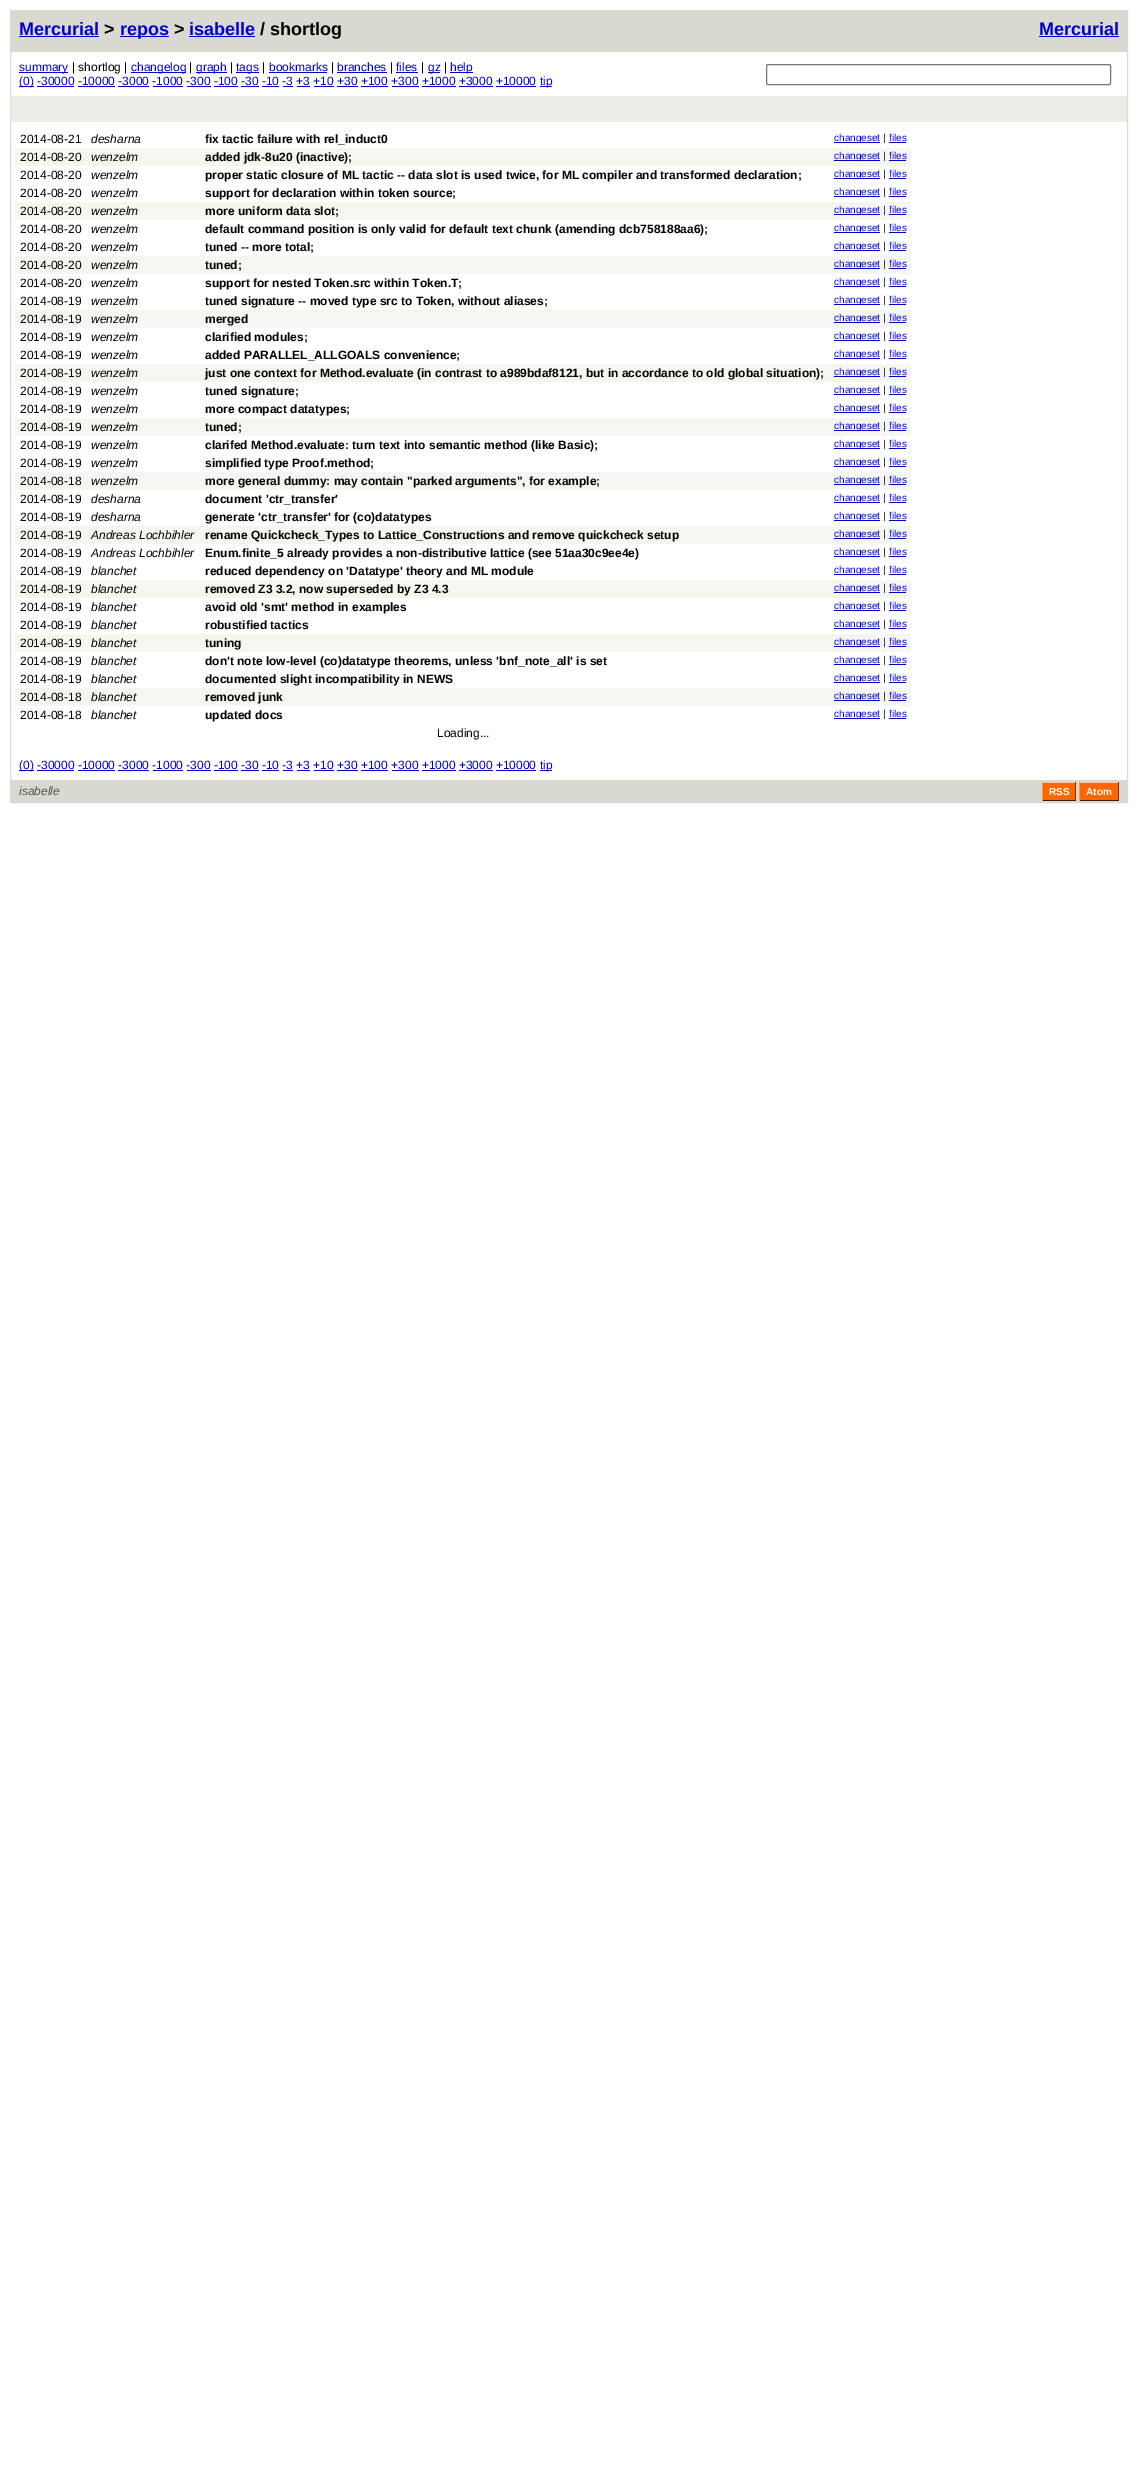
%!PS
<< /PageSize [1138 2486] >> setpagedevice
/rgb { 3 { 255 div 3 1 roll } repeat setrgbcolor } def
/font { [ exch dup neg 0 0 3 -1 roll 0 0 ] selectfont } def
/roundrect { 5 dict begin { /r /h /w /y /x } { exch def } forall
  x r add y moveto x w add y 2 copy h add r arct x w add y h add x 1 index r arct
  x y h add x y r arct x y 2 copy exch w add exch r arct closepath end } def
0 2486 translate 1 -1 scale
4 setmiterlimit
255 255 255 rgb
0 0 1138 2486 rectfill
217 216 209 rgb
10.5 10.5 1117 792 rectstroke
[
  [11 11 1116 41 217 216 209]
  [19 36 80 1 0 0 204]
  [120 36 49 1 0 0 204]
  [189 36 66 1 0 0 204]
  [1039 36 80 1 0 0 204]
  [19 72 49 1 0 0 204]
  [131 72 55 1 0 0 204]
  [196 72 31 1 0 0 204]
  [236 72 23 1 0 0 204]
  [269 72 58 1 0 0 204]
  [337 72 50 1 0 0 204]
  [396 72 22 1 0 0 204]
  [428 72 12 1 0 0 204]
  [450 72 23 1 0 0 204]
  [19 86 15 1 0 0 204]
  [540 86 12 1 0 0 204]
  [37 86 37 1 0 0 204]
  [78 86 37 1 0 0 204]
  [118 86 31 1 0 0 204]
  [153 86 30 1 0 0 204]
  [187 86 24 1 0 0 204]
  [214 86 24 1 0 0 204]
  [241 86 18 1 0 0 204]
  [262 86 17 1 0 0 204]
  [283 86 10 1 0 0 204]
  [297 86 13 1 0 0 204]
  [314 86 20 1 0 0 204]
  [337 86 21 1 0 0 204]
  [361 86 27 1 0 0 204]
  [392 86 27 1 0 0 204]
  [422 86 34 1 0 0 204]
  [459 86 34 1 0 0 204]
  [496 86 40 1 0 0 204]
] { aload pop rgb rectfill } forall
118 118 118 rgb
766.5 64.5 344 20 1.5 roundrect stroke
[
  [11 96 1116 26 237 236 230]
  [834 142 46 1 0 0 204]
  [889 142 17 1 0 0 204]
  [15 148 896 18 246 246 240]
  [834 160 46 1 0 0 204]
  [889 160 17 1 0 0 204]
  [834 178 46 1 0 0 204]
  [889 178 17 1 0 0 204]
  [834 196 46 1 0 0 204]
  [889 196 17 1 0 0 204]
  [15 202 896 18 246 246 240]
  [834 214 46 1 0 0 204]
  [889 214 17 1 0 0 204]
  [834 232 46 1 0 0 204]
  [889 232 17 1 0 0 204]
  [834 250 46 1 0 0 204]
  [889 250 17 1 0 0 204]
  [15 256 896 18 246 246 240]
  [834 268 46 1 0 0 204]
  [889 268 17 1 0 0 204]
  [834 286 46 1 0 0 204]
  [889 286 17 1 0 0 204]
  [834 304 46 1 0 0 204]
  [889 304 17 1 0 0 204]
  [15 310 896 18 246 246 240]
  [834 322 46 1 0 0 204]
  [889 322 17 1 0 0 204]
  [834 340 46 1 0 0 204]
  [889 340 17 1 0 0 204]
  [834 358 46 1 0 0 204]
  [889 358 17 1 0 0 204]
  [15 364 896 18 246 246 240]
  [834 376 46 1 0 0 204]
  [889 376 17 1 0 0 204]
  [834 394 46 1 0 0 204]
  [889 394 17 1 0 0 204]
  [834 412 46 1 0 0 204]
  [889 412 17 1 0 0 204]
  [15 418 896 18 246 246 240]
  [834 430 46 1 0 0 204]
  [889 430 17 1 0 0 204]
  [834 448 46 1 0 0 204]
  [889 448 17 1 0 0 204]
  [834 466 46 1 0 0 204]
  [889 466 17 1 0 0 204]
  [15 472 896 18 246 246 240]
  [834 484 46 1 0 0 204]
  [889 484 17 1 0 0 204]
  [834 502 46 1 0 0 204]
  [889 502 17 1 0 0 204]
  [834 520 46 1 0 0 204]
  [889 520 17 1 0 0 204]
  [15 526 896 18 246 246 240]
  [834 538 46 1 0 0 204]
  [889 538 17 1 0 0 204]
  [834 556 46 1 0 0 204]
  [889 556 17 1 0 0 204]
  [834 574 46 1 0 0 204]
  [889 574 17 1 0 0 204]
  [15 580 896 18 246 246 240]
  [834 592 46 1 0 0 204]
  [889 592 17 1 0 0 204]
  [834 610 46 1 0 0 204]
  [889 610 17 1 0 0 204]
  [834 628 46 1 0 0 204]
  [889 628 17 1 0 0 204]
  [15 634 896 18 246 246 240]
  [834 646 46 1 0 0 204]
  [889 646 17 1 0 0 204]
  [834 664 46 1 0 0 204]
  [889 664 17 1 0 0 204]
  [834 682 46 1 0 0 204]
  [889 682 17 1 0 0 204]
  [15 688 896 18 246 246 240]
  [834 700 46 1 0 0 204]
  [889 700 17 1 0 0 204]
  [834 718 46 1 0 0 204]
  [889 718 17 1 0 0 204]
  [19 770 15 1 0 0 204]
  [540 770 12 1 0 0 204]
  [37 770 37 1 0 0 204]
  [78 770 37 1 0 0 204]
  [118 770 31 1 0 0 204]
  [153 770 30 1 0 0 204]
  [187 770 24 1 0 0 204]
  [214 770 24 1 0 0 204]
  [241 770 18 1 0 0 204]
  [262 770 17 1 0 0 204]
  [283 770 10 1 0 0 204]
  [297 770 13 1 0 0 204]
  [314 770 20 1 0 0 204]
  [337 770 21 1 0 0 204]
  [361 770 27 1 0 0 204]
  [392 770 27 1 0 0 204]
  [422 770 34 1 0 0 204]
  [459 770 34 1 0 0 204]
  [496 770 40 1 0 0 204]
  [11 780 1116 22 217 216 209]
  [1043 783 32 17 255 102 0]
  [1042 782 34 1 252 199 165]
  [1075 782 1 19 125 51 2]
  [1042 800 34 1 62 26 1]
  [1042 782 1 19 255 149 78]
  [1080 783 38 17 255 102 0]
  [1079 782 40 1 252 199 165]
  [1118 782 1 19 125 51 2]
  [1079 800 40 1 62 26 1]
  [1079 782 1 19 255 149 78]
] { aload pop rgb rectfill } forall
/LiberationSans-Bold 18 font
0 0 204 rgb
19 35 moveto (Mercurial) show
0 0 0 rgb
104 35 moveto (>) show
0 0 204 rgb
120 35 moveto (repos) show
0 0 0 rgb
174 35 moveto (>) show
0 0 204 rgb
189 35 moveto (isabelle) show
0 0 0 rgb
260 35 moveto (/ shortlog) show
0 0 204 rgb
1039 35 moveto (Mercurial) show
/LiberationSans-Regular 12 font
19 71 moveto (summary) show
0 0 0 rgb
72 71 moveto (| shortlog |) show
0 0 204 rgb
131 71 moveto (changelog) show
0 0 0 rgb
189 71 moveto (|) show
0 0 204 rgb
196 71 moveto (graph) show
0 0 0 rgb
230 71 moveto (|) show
0 0 204 rgb
236 71 moveto (tags) show
0 0 0 rgb
262 71 moveto (|) show
0 0 204 rgb
269 71 moveto (bookmarks) show
0 0 0 rgb
331 71 moveto (|) show
0 0 204 rgb
337 71 moveto (branches) show
0 0 0 rgb
390 71 moveto (|) show
0 0 204 rgb
396 71 moveto (files) show
0 0 0 rgb
421 71 moveto (|) show
0 0 204 rgb
428 71 moveto (gz) show
0 0 0 rgb
444 71 moveto (|) show
0 0 204 rgb
[
  [(help) 450 71]
  [(\(0\) -30000 -10000 -3000 -1000 -300 -100 -30 -10 -3 +3 +10 +30 +100 +300 +1000 +3000 +10000) 19 85]
  [(tip) 540 85]
] { aload pop moveto show } forall
0 0 0 rgb
20 143 moveto (2014-08-21) show
/LiberationSans-Italic 12 font
91 143 moveto (desharna) show
/LiberationSans-Bold 12 font
205 143 moveto (fix tactic failure with rel_induct0) show
/LiberationSans-Regular 10 font
0 0 204 rgb
834 141 moveto (changeset) show
0 0 0 rgb
883 141 moveto (|) show
0 0 204 rgb
889 141 moveto (files) show
/LiberationSans-Regular 12 font
0 0 0 rgb
20 161 moveto (2014-08-20) show
/LiberationSans-Italic 12 font
91 161 moveto (wenzelm) show
/LiberationSans-Bold 12 font
205 161 moveto (added jdk-8u20 \(inactive\);) show
/LiberationSans-Regular 10 font
0 0 204 rgb
834 159 moveto (changeset) show
0 0 0 rgb
883 159 moveto (|) show
0 0 204 rgb
889 159 moveto (files) show
/LiberationSans-Regular 12 font
0 0 0 rgb
20 179 moveto (2014-08-20) show
/LiberationSans-Italic 12 font
91 179 moveto (wenzelm) show
/LiberationSans-Bold 12 font
205 179 moveto (proper static closure of ML tactic -- data slot is used twice, for ML compiler and transformed declaration;) show
/LiberationSans-Regular 10 font
0 0 204 rgb
834 177 moveto (changeset) show
0 0 0 rgb
883 177 moveto (|) show
0 0 204 rgb
889 177 moveto (files) show
/LiberationSans-Regular 12 font
0 0 0 rgb
20 197 moveto (2014-08-20) show
/LiberationSans-Italic 12 font
91 197 moveto (wenzelm) show
/LiberationSans-Bold 12 font
205 197 moveto (support for declaration within token source;) show
/LiberationSans-Regular 10 font
0 0 204 rgb
834 195 moveto (changeset) show
0 0 0 rgb
883 195 moveto (|) show
0 0 204 rgb
889 195 moveto (files) show
/LiberationSans-Regular 12 font
0 0 0 rgb
20 215 moveto (2014-08-20) show
/LiberationSans-Italic 12 font
91 215 moveto (wenzelm) show
/LiberationSans-Bold 12 font
205 215 moveto (more uniform data slot;) show
/LiberationSans-Regular 10 font
0 0 204 rgb
834 213 moveto (changeset) show
0 0 0 rgb
883 213 moveto (|) show
0 0 204 rgb
889 213 moveto (files) show
/LiberationSans-Regular 12 font
0 0 0 rgb
20 233 moveto (2014-08-20) show
/LiberationSans-Italic 12 font
91 233 moveto (wenzelm) show
/LiberationSans-Bold 12 font
205 233 moveto (default command position is only valid for default text chunk \(amending dcb758188aa6\);) show
/LiberationSans-Regular 10 font
0 0 204 rgb
834 231 moveto (changeset) show
0 0 0 rgb
883 231 moveto (|) show
0 0 204 rgb
889 231 moveto (files) show
/LiberationSans-Regular 12 font
0 0 0 rgb
20 251 moveto (2014-08-20) show
/LiberationSans-Italic 12 font
91 251 moveto (wenzelm) show
/LiberationSans-Bold 12 font
205 251 moveto (tuned -- more total;) show
/LiberationSans-Regular 10 font
0 0 204 rgb
834 249 moveto (changeset) show
0 0 0 rgb
883 249 moveto (|) show
0 0 204 rgb
889 249 moveto (files) show
/LiberationSans-Regular 12 font
0 0 0 rgb
20 269 moveto (2014-08-20) show
/LiberationSans-Italic 12 font
91 269 moveto (wenzelm) show
/LiberationSans-Bold 12 font
205 269 moveto (tuned;) show
/LiberationSans-Regular 10 font
0 0 204 rgb
834 267 moveto (changeset) show
0 0 0 rgb
883 267 moveto (|) show
0 0 204 rgb
889 267 moveto (files) show
/LiberationSans-Regular 12 font
0 0 0 rgb
20 287 moveto (2014-08-20) show
/LiberationSans-Italic 12 font
91 287 moveto (wenzelm) show
/LiberationSans-Bold 12 font
205 287 moveto (support for nested Token.src within Token.T;) show
/LiberationSans-Regular 10 font
0 0 204 rgb
834 285 moveto (changeset) show
0 0 0 rgb
883 285 moveto (|) show
0 0 204 rgb
889 285 moveto (files) show
/LiberationSans-Regular 12 font
0 0 0 rgb
20 305 moveto (2014-08-19) show
/LiberationSans-Italic 12 font
91 305 moveto (wenzelm) show
/LiberationSans-Bold 12 font
205 305 moveto (tuned signature -- moved type src to Token, without aliases;) show
/LiberationSans-Regular 10 font
0 0 204 rgb
834 303 moveto (changeset) show
0 0 0 rgb
883 303 moveto (|) show
0 0 204 rgb
889 303 moveto (files) show
/LiberationSans-Regular 12 font
0 0 0 rgb
20 323 moveto (2014-08-19) show
/LiberationSans-Italic 12 font
91 323 moveto (wenzelm) show
/LiberationSans-Bold 12 font
205 323 moveto (merged) show
/LiberationSans-Regular 10 font
0 0 204 rgb
834 321 moveto (changeset) show
0 0 0 rgb
883 321 moveto (|) show
0 0 204 rgb
889 321 moveto (files) show
/LiberationSans-Regular 12 font
0 0 0 rgb
20 341 moveto (2014-08-19) show
/LiberationSans-Italic 12 font
91 341 moveto (wenzelm) show
/LiberationSans-Bold 12 font
205 341 moveto (clarified modules;) show
/LiberationSans-Regular 10 font
0 0 204 rgb
834 339 moveto (changeset) show
0 0 0 rgb
883 339 moveto (|) show
0 0 204 rgb
889 339 moveto (files) show
/LiberationSans-Regular 12 font
0 0 0 rgb
20 359 moveto (2014-08-19) show
/LiberationSans-Italic 12 font
91 359 moveto (wenzelm) show
/LiberationSans-Bold 12 font
205 359 moveto (added PARALLEL_ALLGOALS convenience;) show
/LiberationSans-Regular 10 font
0 0 204 rgb
834 357 moveto (changeset) show
0 0 0 rgb
883 357 moveto (|) show
0 0 204 rgb
889 357 moveto (files) show
/LiberationSans-Regular 12 font
0 0 0 rgb
20 377 moveto (2014-08-19) show
/LiberationSans-Italic 12 font
91 377 moveto (wenzelm) show
/LiberationSans-Bold 12 font
205 377 moveto (just one context for Method.evaluate \(in contrast to a989bdaf8121, but in accordance to old global situation\);) show
/LiberationSans-Regular 10 font
0 0 204 rgb
834 375 moveto (changeset) show
0 0 0 rgb
883 375 moveto (|) show
0 0 204 rgb
889 375 moveto (files) show
/LiberationSans-Regular 12 font
0 0 0 rgb
20 395 moveto (2014-08-19) show
/LiberationSans-Italic 12 font
91 395 moveto (wenzelm) show
/LiberationSans-Bold 12 font
205 395 moveto (tuned signature;) show
/LiberationSans-Regular 10 font
0 0 204 rgb
834 393 moveto (changeset) show
0 0 0 rgb
883 393 moveto (|) show
0 0 204 rgb
889 393 moveto (files) show
/LiberationSans-Regular 12 font
0 0 0 rgb
20 413 moveto (2014-08-19) show
/LiberationSans-Italic 12 font
91 413 moveto (wenzelm) show
/LiberationSans-Bold 12 font
205 413 moveto (more compact datatypes;) show
/LiberationSans-Regular 10 font
0 0 204 rgb
834 411 moveto (changeset) show
0 0 0 rgb
883 411 moveto (|) show
0 0 204 rgb
889 411 moveto (files) show
/LiberationSans-Regular 12 font
0 0 0 rgb
20 431 moveto (2014-08-19) show
/LiberationSans-Italic 12 font
91 431 moveto (wenzelm) show
/LiberationSans-Bold 12 font
205 431 moveto (tuned;) show
/LiberationSans-Regular 10 font
0 0 204 rgb
834 429 moveto (changeset) show
0 0 0 rgb
883 429 moveto (|) show
0 0 204 rgb
889 429 moveto (files) show
/LiberationSans-Regular 12 font
0 0 0 rgb
20 449 moveto (2014-08-19) show
/LiberationSans-Italic 12 font
91 449 moveto (wenzelm) show
/LiberationSans-Bold 12 font
205 449 moveto (clarifed Method.evaluate: turn text into semantic method \(like Basic\);) show
/LiberationSans-Regular 10 font
0 0 204 rgb
834 447 moveto (changeset) show
0 0 0 rgb
883 447 moveto (|) show
0 0 204 rgb
889 447 moveto (files) show
/LiberationSans-Regular 12 font
0 0 0 rgb
20 467 moveto (2014-08-19) show
/LiberationSans-Italic 12 font
91 467 moveto (wenzelm) show
/LiberationSans-Bold 12 font
205 467 moveto (simplified type Proof.method;) show
/LiberationSans-Regular 10 font
0 0 204 rgb
834 465 moveto (changeset) show
0 0 0 rgb
883 465 moveto (|) show
0 0 204 rgb
889 465 moveto (files) show
/LiberationSans-Regular 12 font
0 0 0 rgb
20 485 moveto (2014-08-18) show
/LiberationSans-Italic 12 font
91 485 moveto (wenzelm) show
/LiberationSans-Bold 12 font
205 485 moveto (more general dummy: may contain "parked arguments", for example;) show
/LiberationSans-Regular 10 font
0 0 204 rgb
834 483 moveto (changeset) show
0 0 0 rgb
883 483 moveto (|) show
0 0 204 rgb
889 483 moveto (files) show
/LiberationSans-Regular 12 font
0 0 0 rgb
20 503 moveto (2014-08-19) show
/LiberationSans-Italic 12 font
91 503 moveto (desharna) show
/LiberationSans-Bold 12 font
205 503 moveto (document 'ctr_transfer') show
/LiberationSans-Regular 10 font
0 0 204 rgb
834 501 moveto (changeset) show
0 0 0 rgb
883 501 moveto (|) show
0 0 204 rgb
889 501 moveto (files) show
/LiberationSans-Regular 12 font
0 0 0 rgb
20 521 moveto (2014-08-19) show
/LiberationSans-Italic 12 font
91 521 moveto (desharna) show
/LiberationSans-Bold 12 font
205 521 moveto (generate 'ctr_transfer' for \(co\)datatypes) show
/LiberationSans-Regular 10 font
0 0 204 rgb
834 519 moveto (changeset) show
0 0 0 rgb
883 519 moveto (|) show
0 0 204 rgb
889 519 moveto (files) show
/LiberationSans-Regular 12 font
0 0 0 rgb
20 539 moveto (2014-08-19) show
/LiberationSans-Italic 12 font
91 539 moveto (Andreas Lochbihler) show
/LiberationSans-Bold 12 font
205 539 moveto (rename Quickcheck_Types to Lattice_Constructions and remove quickcheck setup) show
/LiberationSans-Regular 10 font
0 0 204 rgb
834 537 moveto (changeset) show
0 0 0 rgb
883 537 moveto (|) show
0 0 204 rgb
889 537 moveto (files) show
/LiberationSans-Regular 12 font
0 0 0 rgb
20 557 moveto (2014-08-19) show
/LiberationSans-Italic 12 font
91 557 moveto (Andreas Lochbihler) show
/LiberationSans-Bold 12 font
205 557 moveto (Enum.finite_5 already provides a non-distributive lattice \(see 51aa30c9ee4e\)) show
/LiberationSans-Regular 10 font
0 0 204 rgb
834 555 moveto (changeset) show
0 0 0 rgb
883 555 moveto (|) show
0 0 204 rgb
889 555 moveto (files) show
/LiberationSans-Regular 12 font
0 0 0 rgb
20 575 moveto (2014-08-19) show
/LiberationSans-Italic 12 font
91 575 moveto (blanchet) show
/LiberationSans-Bold 12 font
205 575 moveto (reduced dependency on 'Datatype' theory and ML module) show
/LiberationSans-Regular 10 font
0 0 204 rgb
834 573 moveto (changeset) show
0 0 0 rgb
883 573 moveto (|) show
0 0 204 rgb
889 573 moveto (files) show
/LiberationSans-Regular 12 font
0 0 0 rgb
20 593 moveto (2014-08-19) show
/LiberationSans-Italic 12 font
91 593 moveto (blanchet) show
/LiberationSans-Bold 12 font
205 593 moveto (removed Z3 3.2, now superseded by Z3 4.3) show
/LiberationSans-Regular 10 font
0 0 204 rgb
834 591 moveto (changeset) show
0 0 0 rgb
883 591 moveto (|) show
0 0 204 rgb
889 591 moveto (files) show
/LiberationSans-Regular 12 font
0 0 0 rgb
20 611 moveto (2014-08-19) show
/LiberationSans-Italic 12 font
91 611 moveto (blanchet) show
/LiberationSans-Bold 12 font
205 611 moveto (avoid old 'smt' method in examples) show
/LiberationSans-Regular 10 font
0 0 204 rgb
834 609 moveto (changeset) show
0 0 0 rgb
883 609 moveto (|) show
0 0 204 rgb
889 609 moveto (files) show
/LiberationSans-Regular 12 font
0 0 0 rgb
20 629 moveto (2014-08-19) show
/LiberationSans-Italic 12 font
91 629 moveto (blanchet) show
/LiberationSans-Bold 12 font
205 629 moveto (robustified tactics) show
/LiberationSans-Regular 10 font
0 0 204 rgb
834 627 moveto (changeset) show
0 0 0 rgb
883 627 moveto (|) show
0 0 204 rgb
889 627 moveto (files) show
/LiberationSans-Regular 12 font
0 0 0 rgb
20 647 moveto (2014-08-19) show
/LiberationSans-Italic 12 font
91 647 moveto (blanchet) show
/LiberationSans-Bold 12 font
205 647 moveto (tuning) show
/LiberationSans-Regular 10 font
0 0 204 rgb
834 645 moveto (changeset) show
0 0 0 rgb
883 645 moveto (|) show
0 0 204 rgb
889 645 moveto (files) show
/LiberationSans-Regular 12 font
0 0 0 rgb
20 665 moveto (2014-08-19) show
/LiberationSans-Italic 12 font
91 665 moveto (blanchet) show
/LiberationSans-Bold 12 font
205 665 moveto (don't note low-level \(co\)datatype theorems, unless 'bnf_note_all' is set) show
/LiberationSans-Regular 10 font
0 0 204 rgb
834 663 moveto (changeset) show
0 0 0 rgb
883 663 moveto (|) show
0 0 204 rgb
889 663 moveto (files) show
/LiberationSans-Regular 12 font
0 0 0 rgb
20 683 moveto (2014-08-19) show
/LiberationSans-Italic 12 font
91 683 moveto (blanchet) show
/LiberationSans-Bold 12 font
205 683 moveto (documented slight incompatibility in NEWS) show
/LiberationSans-Regular 10 font
0 0 204 rgb
834 681 moveto (changeset) show
0 0 0 rgb
883 681 moveto (|) show
0 0 204 rgb
889 681 moveto (files) show
/LiberationSans-Regular 12 font
0 0 0 rgb
20 701 moveto (2014-08-18) show
/LiberationSans-Italic 12 font
91 701 moveto (blanchet) show
/LiberationSans-Bold 12 font
205 701 moveto (removed junk) show
/LiberationSans-Regular 10 font
0 0 204 rgb
834 699 moveto (changeset) show
0 0 0 rgb
883 699 moveto (|) show
0 0 204 rgb
889 699 moveto (files) show
/LiberationSans-Regular 12 font
0 0 0 rgb
20 719 moveto (2014-08-18) show
/LiberationSans-Italic 12 font
91 719 moveto (blanchet) show
/LiberationSans-Bold 12 font
205 719 moveto (updated docs) show
/LiberationSans-Regular 10 font
0 0 204 rgb
834 717 moveto (changeset) show
0 0 0 rgb
883 717 moveto (|) show
0 0 204 rgb
889 717 moveto (files) show
/LiberationSans-Regular 12 font
0 0 0 rgb
437 737 moveto (Loading...) show
0 0 204 rgb
19 769 moveto (\(0\) -30000 -10000 -3000 -1000 -300 -100 -30 -10 -3 +3 +10 +30 +100 +300 +1000 +3000 +10000) show
540 769 moveto (tip) show
/LiberationSans-Italic 12 font
85 85 85 rgb
19 795 moveto (isabelle) show
/LiberationSans-Bold 10 font
255 255 255 rgb
1049 795 moveto (RSS) show
1086 795 moveto (Atom) show
showpage
